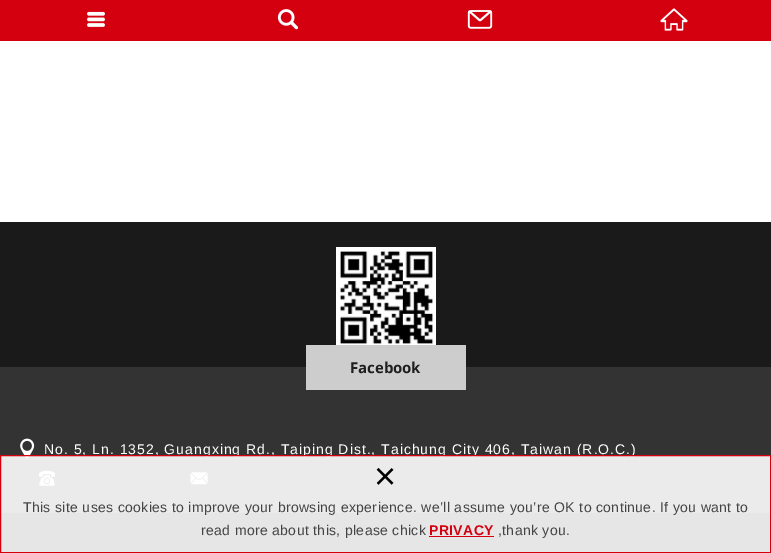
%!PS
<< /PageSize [771 553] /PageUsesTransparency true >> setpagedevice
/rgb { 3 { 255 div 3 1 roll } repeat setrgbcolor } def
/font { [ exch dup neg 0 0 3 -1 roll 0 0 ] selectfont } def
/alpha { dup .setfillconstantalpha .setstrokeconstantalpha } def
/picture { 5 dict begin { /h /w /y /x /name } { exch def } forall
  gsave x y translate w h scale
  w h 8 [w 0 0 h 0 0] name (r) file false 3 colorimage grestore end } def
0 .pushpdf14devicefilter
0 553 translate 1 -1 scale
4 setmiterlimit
255 255 255 rgb
0 0 771 553 rectfill
213 0 15 rgb
0 40 771 1 rectfill
0 0 771 40 rectfill
(img/1.rgb) 87 11 18 16 picture
(img/2.rgb) 277 9 22 21 picture
(img/3.rgb) 467 10 26 19 picture
(img/4.rgb) 660 8 28 23 picture
26 26 26 rgb
0 222 771 145 rectfill
(img/5.rgb) 336 247 100 98 picture
51 51 51 rgb
0 367 771 146 rectfill
(img/6.rgb) 306 345 160 45 picture
(img/7.rgb) 20 438 15 21 picture
(img/8.rgb) 39 470 16 16 picture
(img/9.rgb) 190 472 18 13 picture
0 0 0 rgb
1 513 769 39 rectfill
/LiberationSans-Regular 14 font
255 255 255 rgb
44 454 moveto 1 0 (No. 5, Ln. 1352, Guangxing Rd., Taiping Dist., Taichung City 406, Taiwan \(R.O.C.\)) ashow
0.9 alpha
0.5 455.5 moveto 770.5 455.5 lineto 770.5 552.5 lineto 0.5 552.5 lineto closepath fill
1 alpha
213 0 15 rgb
0.5 455.5 moveto 770.5 455.5 lineto 770.5 552.5 lineto 0.5 552.5 lineto closepath stroke
/LiberationSans-Regular 38 font
0 0 0 rgb
374 489 moveto (×) show
/LiberationSans-Regular 14 font
68 68 68 rgb
23 512 moveto 0.35 0 (This site uses cookies to improve your browsing experience. we’ll assume you’re OK to continue. If you want to) ashow
201 535 moveto 0.35 0 (read more about this, please chick) ashow
/LiberationSans-Bold 14 font
213 0 15 rgb
429 535 moveto 0.35 0 (PRIVACY) ashow
429 536 65 1 rectfill
/LiberationSans-Regular 14 font
68 68 68 rgb
498 535 moveto 0.35 0 (,thank you.) ashow
.poppdf14devicefilter showpage
